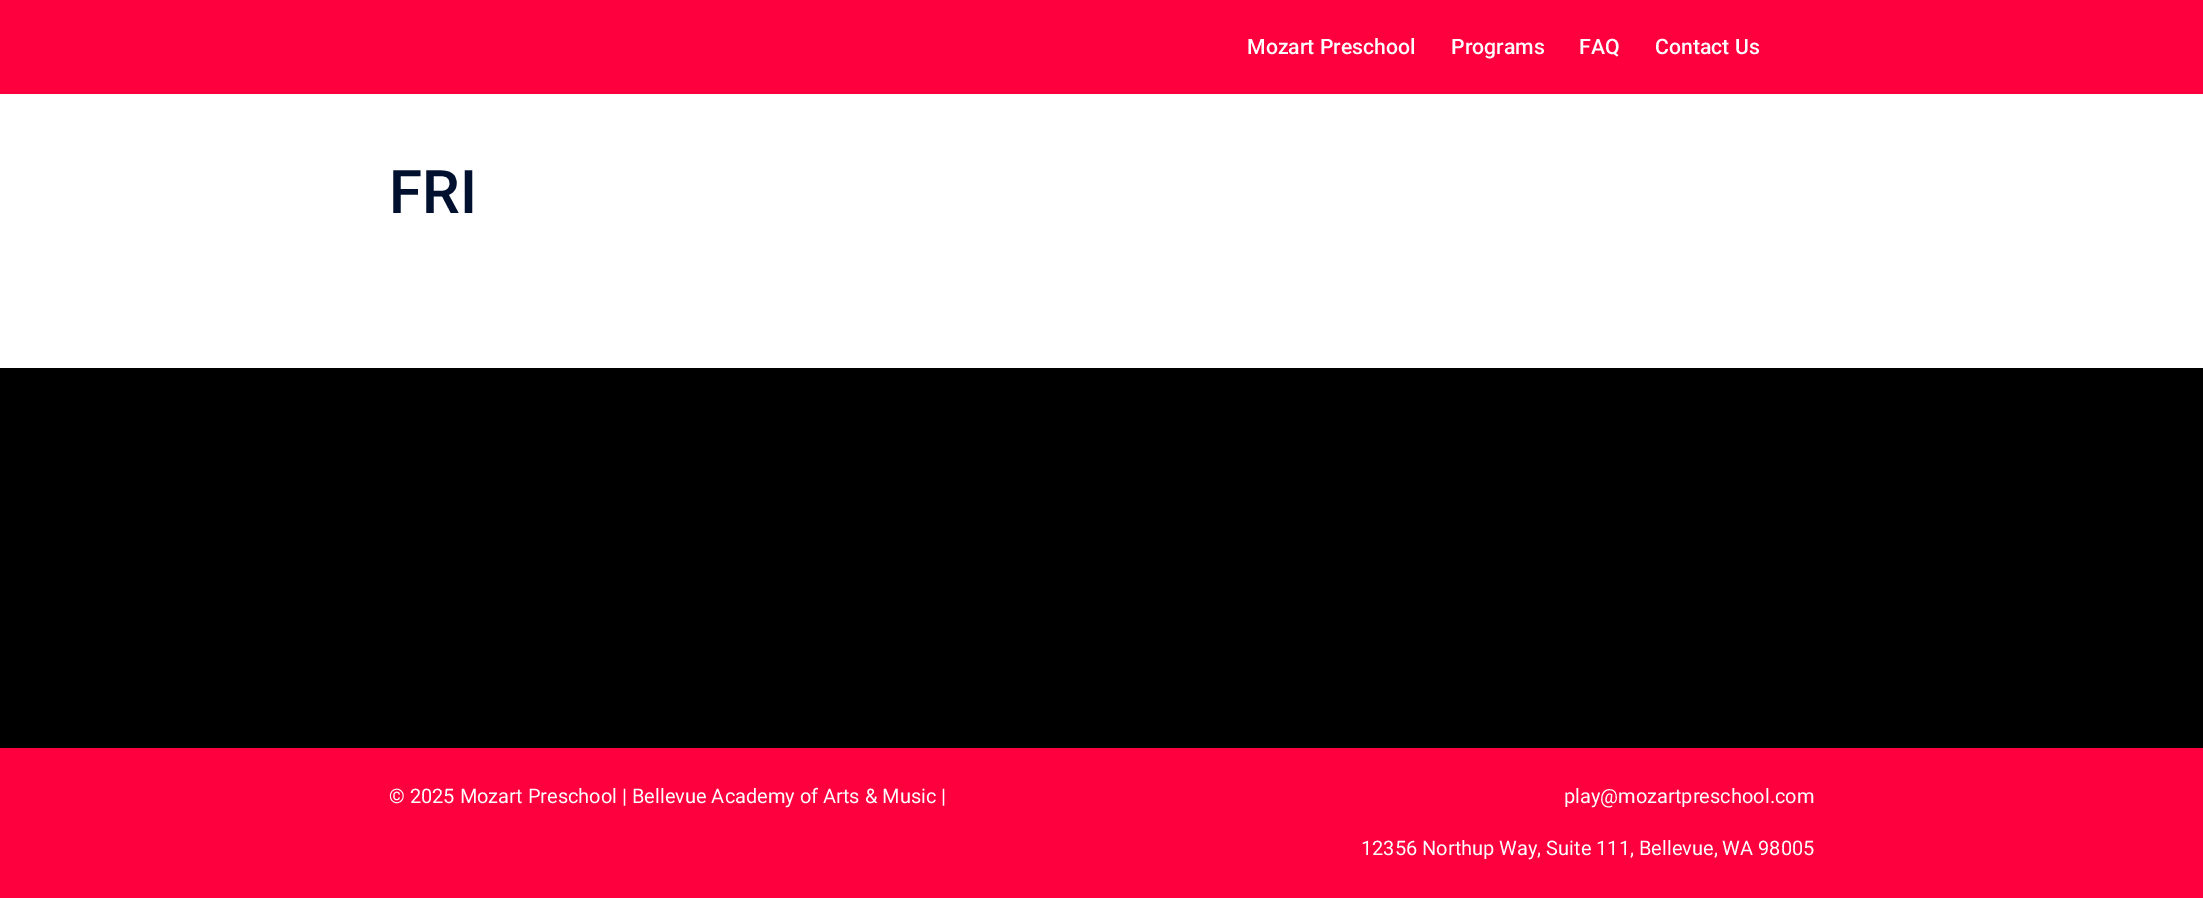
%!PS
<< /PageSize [2203 898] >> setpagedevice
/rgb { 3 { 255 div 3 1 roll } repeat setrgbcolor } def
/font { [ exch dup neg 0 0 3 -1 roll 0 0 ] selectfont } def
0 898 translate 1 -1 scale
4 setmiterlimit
0 0 0 rgb
0 0 2203 898 rectfill
[
  [0 0 2203 94 255 0 63]
  [0 94 2203 274 255 255 255]
  [0 748 2203 150 255 0 63]
] { aload pop rgb rectfill } forall
/Roboto-Medium 21.25 font
255 255 255 rgb
[
  [(Mozart Preschool) 1247 54]
  [(Programs) 1451 54]
  [(FAQ) 1579 54]
  [(Contact Us) 1655 54]
] { aload pop moveto show } forall
/Roboto-Medium 60 font
0 16 46 rgb
389 213 moveto (FRI) show
/Roboto-Regular 20 font
255 255 255 rgb
[
  [(© 2025 Mozart Preschool | Bellevue Academy of Arts & Music |) 389 803]
  [(play@mozartpreschool.com) 1564 803]
  [(12356 Northup Way, Suite 111, Bellevue, WA 98005) 1361 855]
] { aload pop moveto show } forall
showpage
